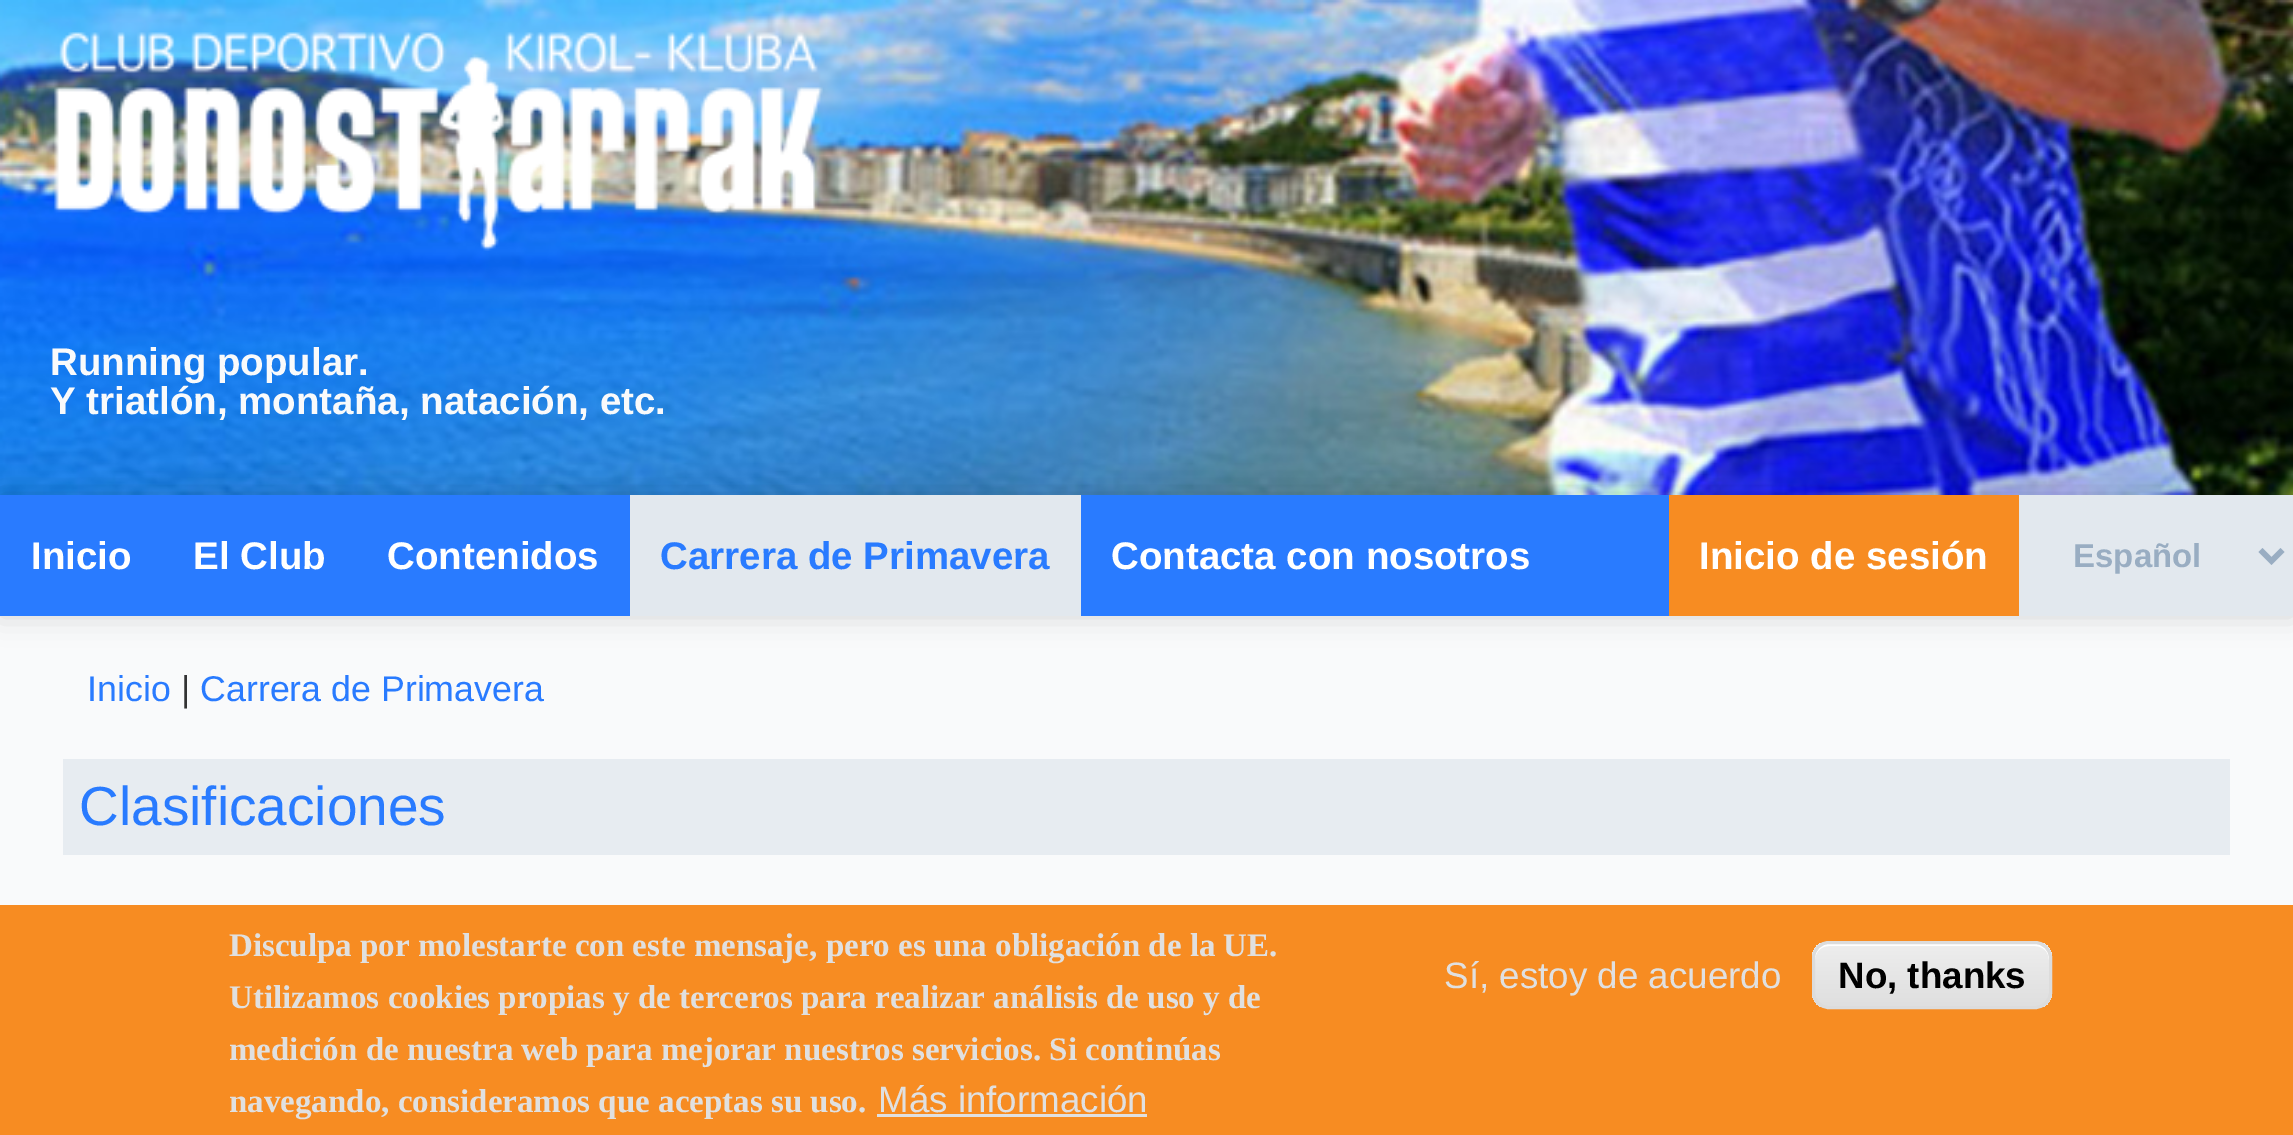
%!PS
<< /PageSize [2293 1135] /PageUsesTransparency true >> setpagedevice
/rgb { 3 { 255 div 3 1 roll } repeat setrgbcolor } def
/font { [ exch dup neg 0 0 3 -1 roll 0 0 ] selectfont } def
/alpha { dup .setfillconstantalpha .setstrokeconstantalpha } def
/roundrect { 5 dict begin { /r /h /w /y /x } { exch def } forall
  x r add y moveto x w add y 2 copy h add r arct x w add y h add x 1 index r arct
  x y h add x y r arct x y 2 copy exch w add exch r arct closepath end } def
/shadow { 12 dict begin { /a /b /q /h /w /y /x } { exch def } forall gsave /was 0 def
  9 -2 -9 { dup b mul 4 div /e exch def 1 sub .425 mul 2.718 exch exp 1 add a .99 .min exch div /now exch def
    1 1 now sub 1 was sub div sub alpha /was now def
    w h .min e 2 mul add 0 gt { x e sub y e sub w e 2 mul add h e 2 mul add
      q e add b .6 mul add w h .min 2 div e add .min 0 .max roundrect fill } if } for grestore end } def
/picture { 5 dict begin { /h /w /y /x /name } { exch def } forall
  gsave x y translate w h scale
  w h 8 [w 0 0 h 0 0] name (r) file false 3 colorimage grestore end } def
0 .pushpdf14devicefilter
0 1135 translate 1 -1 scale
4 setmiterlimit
255 255 255 rgb
0 0 2293 1135 rectfill
(img/1.rgb) 0 0 2293 495 picture
(img/2.rgb) 54 32 769 219 picture
249 250 251 rgb
0 616 2293 289 rectfill
0 0 0 rgb
0 495 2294 121 0 14 0.15 shadow
[
  [0 495 1669 121 41 123 255]
  [630 495 451 121 226 232 238]
  [1669 495 350 121 247 140 34]
  [2019 495 274 121 226 232 238]
] { aload pop rgb rectfill } forall
153 173 194 rgb
5.5 setlinewidth
2260.5 550 moveto 2271.5 561 lineto 2282.5 550 lineto stroke
[
  [63 759 2167 96 231 236 241]
  [0 905 2293 230 247 140 34]
  [877 1114 270 3 224 224 224]
] { aload pop rgb rectfill } forall
gsave
1812 941 240 68 17 roundrect clip newpath
gsave 1812 943 moveto 2052 943 lineto 2052 1007 lineto 1812 1007 lineto closepath clip newpath
<< /ShadingType 2 /ColorSpace /DeviceRGB /Coords [1932 943 1932 1007] /Extend [true true] /Function << /FunctionType 3 /Domain [0 1] /Functions [<< /FunctionType 2 /Domain [0 1] /C0 [0.929 0.929 0.929] /C1 [0.929 0.929 0.929] /N 1 >> << /FunctionType 2 /Domain [0 1] /C0 [0.929 0.929 0.929] /C1 [0.875 0.875 0.875] /N 1 >>] /Bounds [0.05] /Encode [0 1 0 1] >> >> shfill grestore
grestore
255 255 255 rgb
1829 946 moveto 2035 946 lineto 2043 946 2049 952 2049 960 curveto 2049 957 lineto 2049 949 2043 943 2035 943 curveto 1829 943 lineto 1821 943 1815 949 1815 957 curveto 1815 960 lineto 1815 952 1821 946 1829 946 curveto closepath fill
220 220 220 rgb
3 setlinewidth
1813.5 942.5 237 65 15.5 roundrect stroke
/LiberationSans-Bold 38.5 font
249 250 251 rgb
50 375 moveto (Running popular.) show
50 414 moveto (Y triatlón, montaña, natación, etc.) show
255 255 255 rgb
[
  [(Inicio) 31 569]
  [(El Club) 193 569]
  [(Contenidos) 387 569]
] { aload pop moveto show } forall
41 123 255 rgb
660 569 moveto (Carrera de Primavera) show
255 255 255 rgb
1111 569 moveto (Contacta con nosotros) show
1699 569 moveto (Inicio de sesión) show
/LiberationSans-Bold 33 font
153 173 194 rgb
2073 567 moveto (Español) show
/LiberationSans-Regular 35.75 font
41 123 255 rgb
87 701 moveto (Inicio) show
51 51 51 rgb
181 701 moveto (|) show
41 123 255 rgb
200 701 moveto (Carrera de Primavera) show
/LiberationSans-Regular 55 font
79 825 moveto (Clasificaciones) show
/LiberationSerif-Bold 33 font
224 224 224 rgb
[
  [(Disculpa por molestarte con este mensaje, pero es una obligación de la UE.) 229 956]
  [(Utilizamos cookies propias y de terceros para realizar análisis de uso y de) 229 1008]
  [(medición de nuestra web para mejorar nuestros servicios. Si continúas) 229 1060]
  [(navegando, consideramos que aceptas su uso.) 229 1112]
] { aload pop moveto show } forall
/LiberationSans-Regular 36.75 font
878 1112 moveto (Más información) show
1444 988 moveto (Sí, estoy de acuerdo) show
/LiberationSans-Bold 36.75 font
0 0 0 rgb
1838 988 moveto (No, thanks) show
.poppdf14devicefilter showpage
